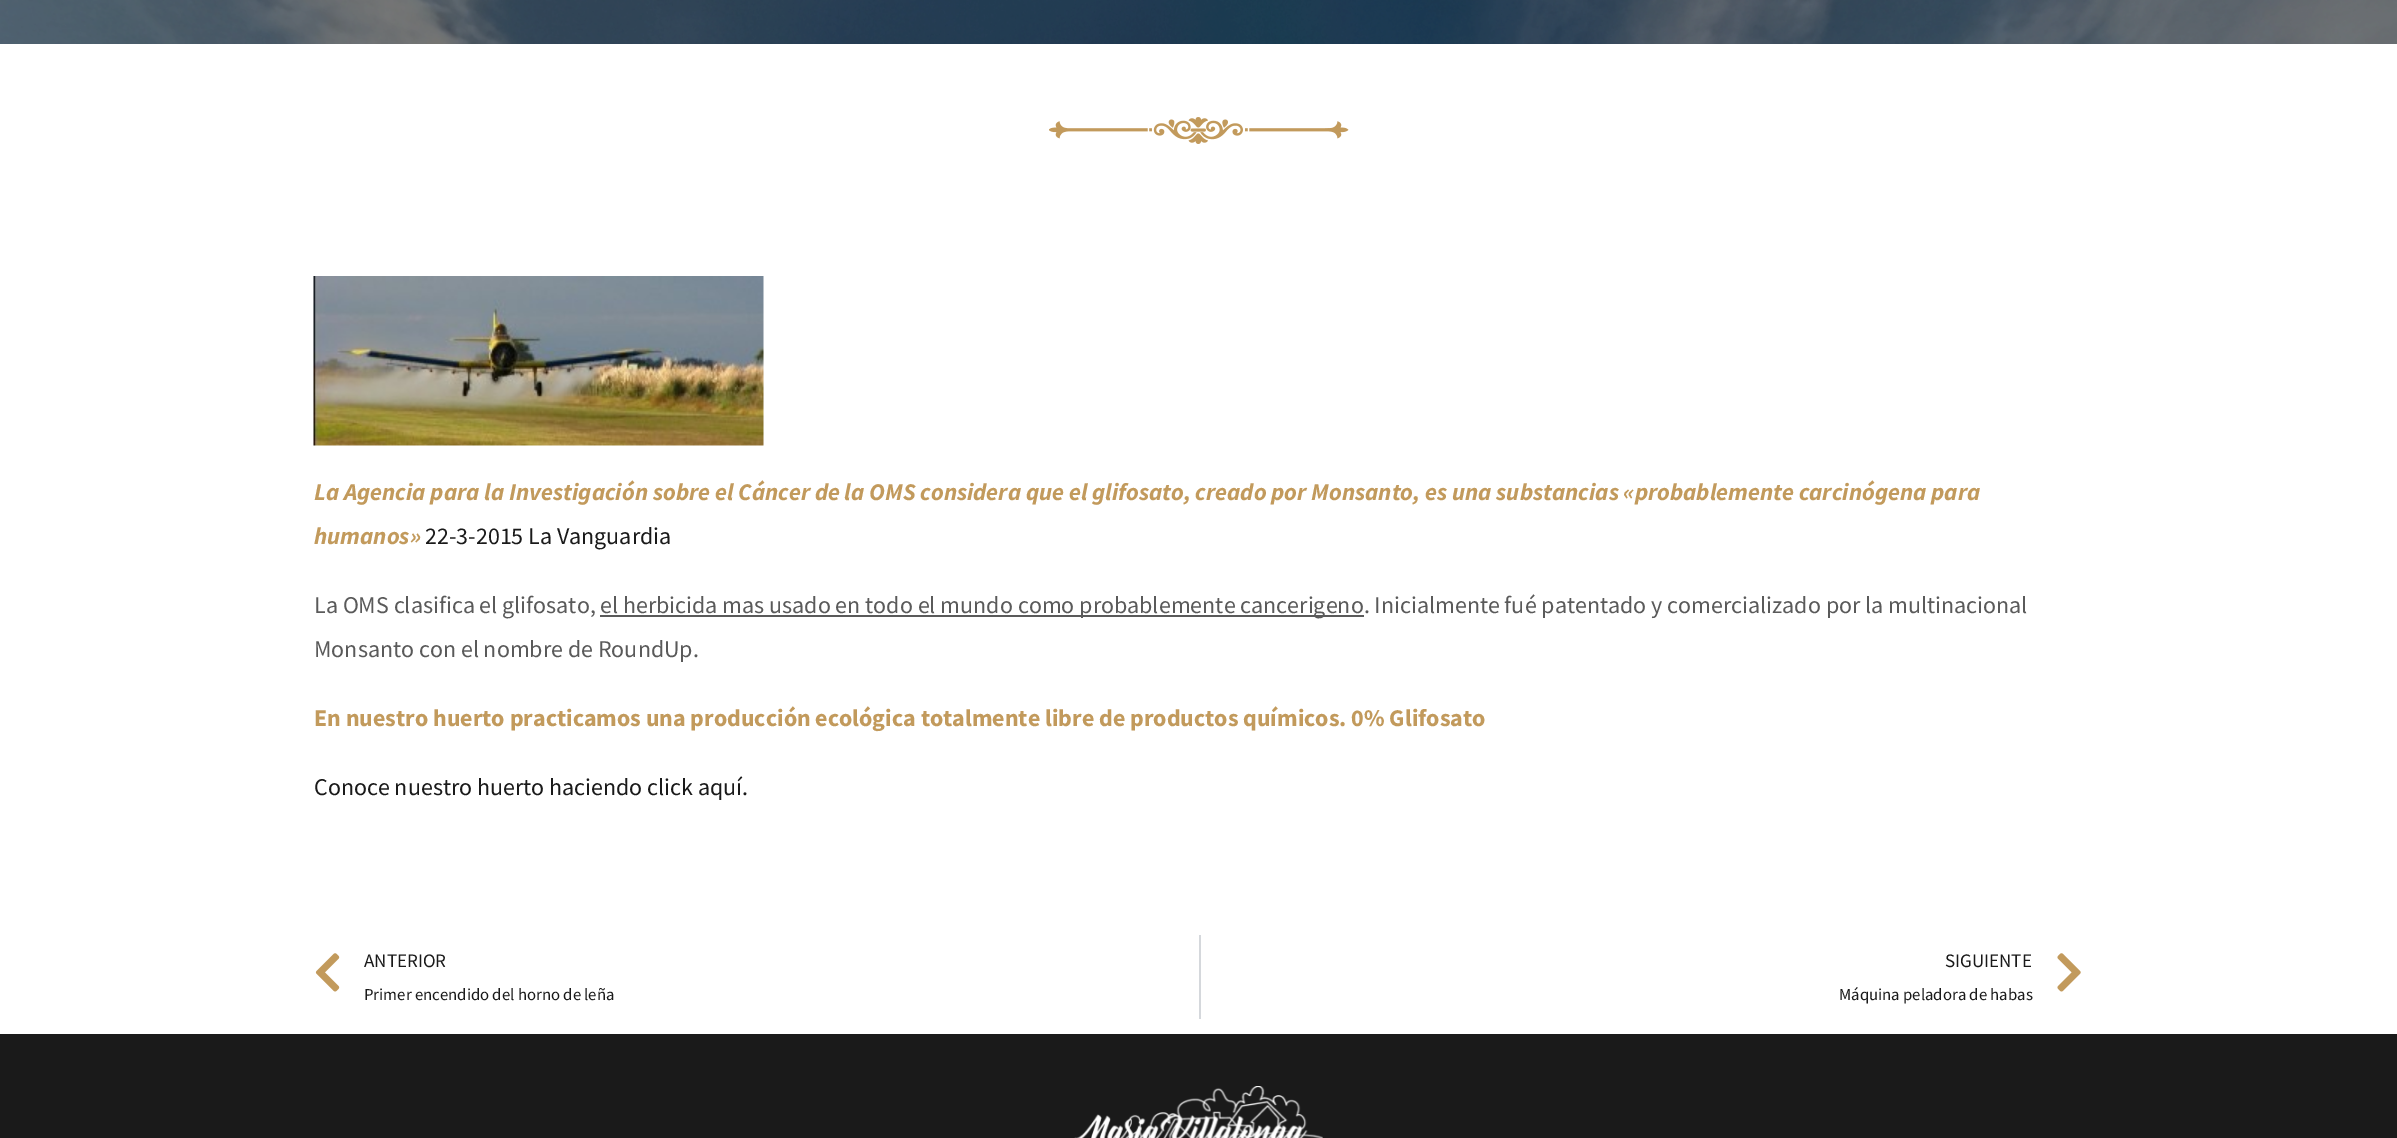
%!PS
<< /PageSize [2397 1138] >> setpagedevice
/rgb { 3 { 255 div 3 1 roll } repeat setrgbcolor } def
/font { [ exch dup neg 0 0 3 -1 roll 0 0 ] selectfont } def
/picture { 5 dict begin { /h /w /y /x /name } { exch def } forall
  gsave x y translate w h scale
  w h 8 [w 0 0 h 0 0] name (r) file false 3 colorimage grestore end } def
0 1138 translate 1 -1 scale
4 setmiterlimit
255 255 255 rgb
0 0 2397 1138 rectfill
(img/1.rgb) 0 0 2397 44 picture
(img/2.rgb) 1049 117 300 27 picture
(img/3.rgb) 313 276 451 170 picture
90 90 90 rgb
600 615 764 2 rectfill
(img/4.rgb) 315 953 25 39 picture
213 216 220 rgb
1199 935 2 84 rectfill
(img/5.rgb) 2057 953 24 39 picture
26 26 26 rgb
0 1034 2397 104 rectfill
(img/6.rgb) 1074 1086 249 52 picture
/SourceSansPro-BoldItalic 24 font
194 154 92 rgb
314 500 moveto (La Agencia para la Investigación sobre el Cáncer de la OMS considera que el glifosato, creado por Monsanto, es una substancias «probablemente carcinógena para) show
314 544 moveto (humanos») show
/SourceSansPro-Regular 24 font
26 26 26 rgb
425 544 moveto (22-3-2015 La Vanguardia) show
90 90 90 rgb
[
  [(La OMS clasifica el glifosato,) 314 613]
  [(el herbicida mas usado en todo el mundo como probablemente cancerigeno. Inicialmente fué patentado y comercializado por la multinacional) 600 613]
  [(Monsanto con el nombre de RoundUp.) 314 657]
] { aload pop moveto show } forall
/SourceSansPro-Bold 24 font
194 154 92 rgb
314 726 moveto (En nuestro huerto practicamos una producción ecológica totalmente libre de productos químicos. 0% Glifosato) show
/SourceSansPro-Regular 24 font
26 26 26 rgb
314 795 moveto (Conoce nuestro huerto haciendo click aquí.) show
/SourceSansPro-Regular 19 font
364 967 moveto (ANTERIOR) show
/SourceSansPro-Regular 16.75 font
364 1000 moveto (Primer encendido del horno de leña) show
/SourceSansPro-Regular 19 font
1945 967 moveto (SIGUIENTE) show
/SourceSansPro-Regular 16.75 font
1839 1000 moveto (Máquina peladora de habas) show
showpage
